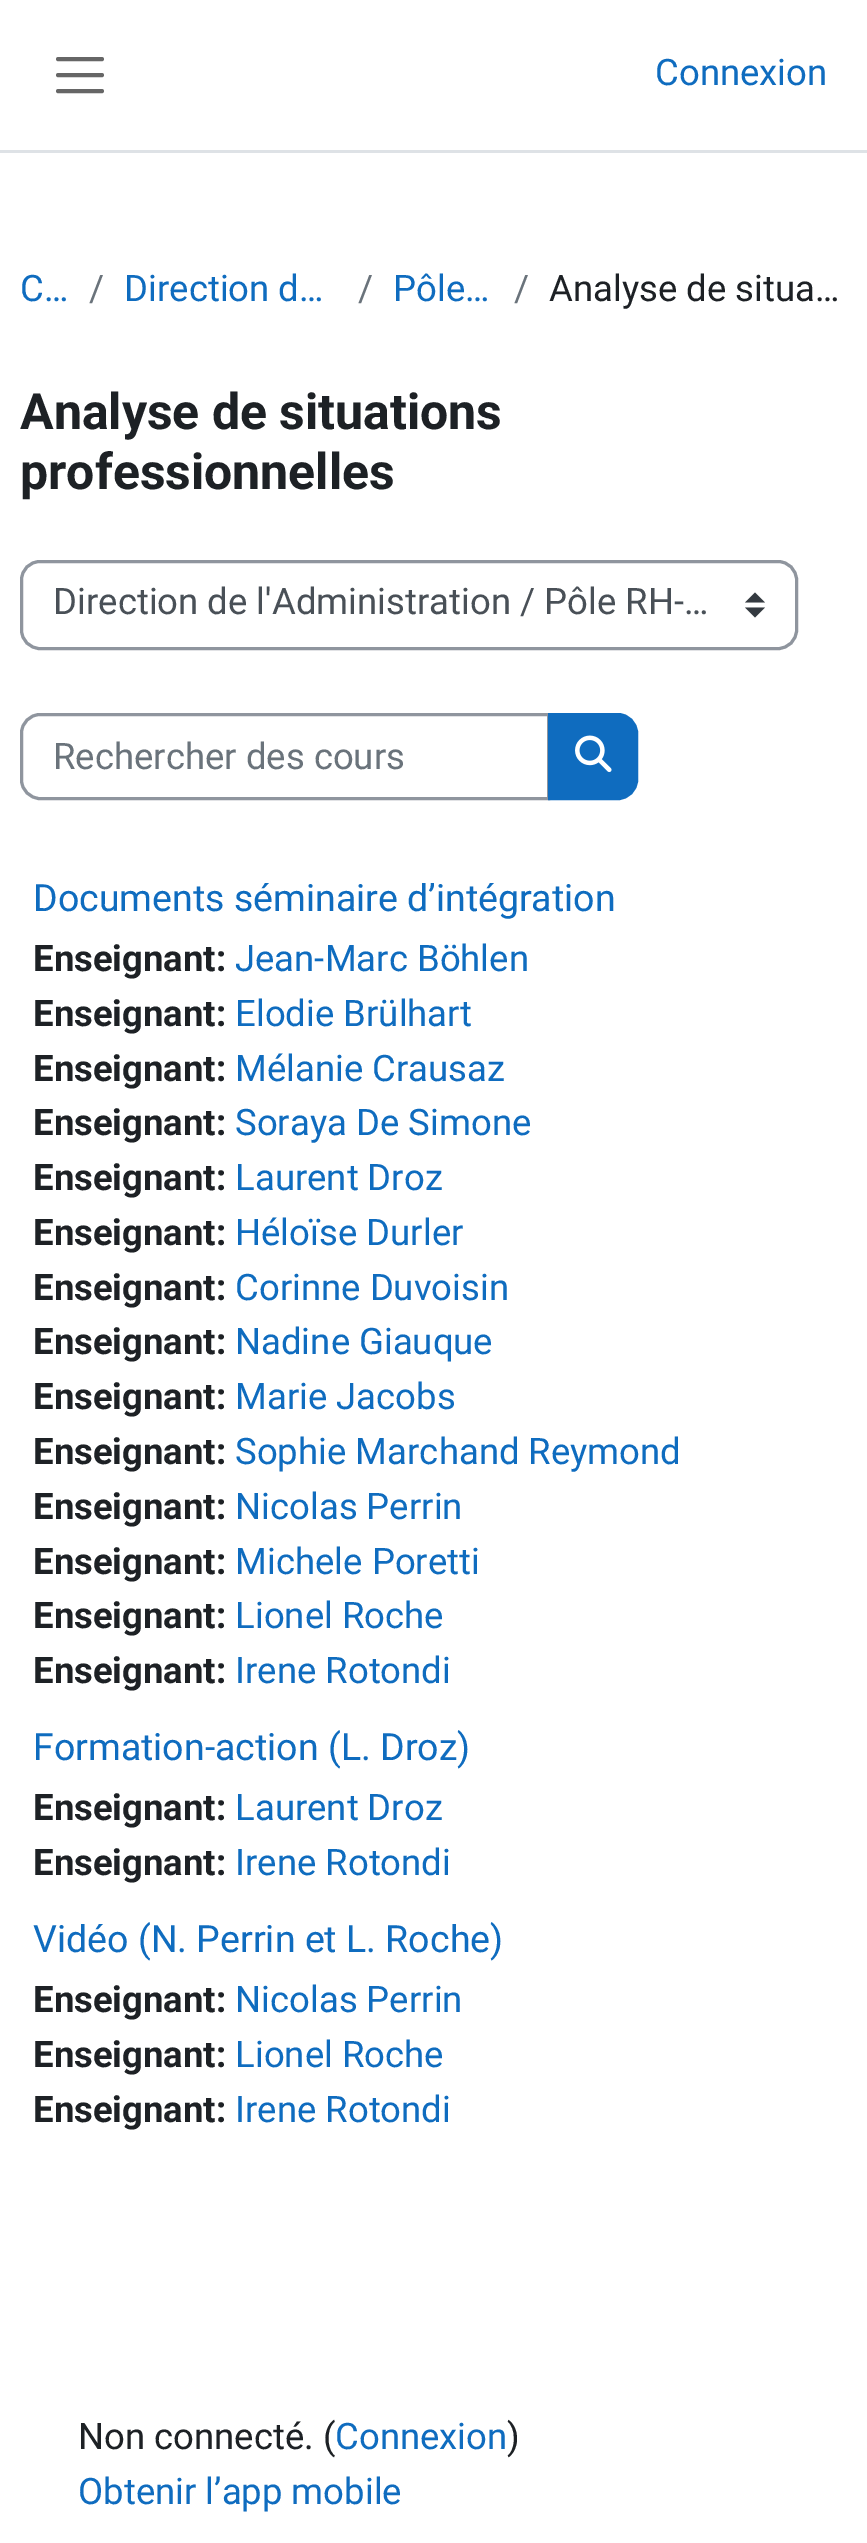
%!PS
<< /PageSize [867 2543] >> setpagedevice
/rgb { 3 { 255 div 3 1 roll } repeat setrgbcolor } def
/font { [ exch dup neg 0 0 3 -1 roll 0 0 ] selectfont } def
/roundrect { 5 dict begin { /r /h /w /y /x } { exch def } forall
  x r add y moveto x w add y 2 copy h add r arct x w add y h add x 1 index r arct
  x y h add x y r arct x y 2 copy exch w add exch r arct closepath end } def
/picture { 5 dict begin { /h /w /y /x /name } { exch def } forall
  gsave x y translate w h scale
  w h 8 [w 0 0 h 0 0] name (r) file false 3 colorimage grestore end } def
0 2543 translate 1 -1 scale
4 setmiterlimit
255 255 255 rgb
0 0 867 2543 rectfill
222 226 230 rgb
0 150 867 3 rectfill
102 102 102 rgb
4 setlinewidth
1 setlinecap
58 59 moveto 102 59 lineto 58 75 moveto 102 75 lineto 58 91 moveto 102 91 lineto stroke
52 58 64 rgb
755 592.5 moveto 745 602.5 lineto 765 602.5 lineto closepath 755 617.5 moveto 745 607.5 lineto 765 607.5 lineto closepath fill
143 149 158 rgb
3 setlinewidth
0 setlinecap
21.5 561.5 775 87 18.5 roundrect stroke
40 714.5 moveto 548.5 714.5 lineto 548.5 798.5 lineto 40 798.5 lineto 30 798.5 21.5 790 21.5 780 curveto 21.5 733 lineto 21.5 723 30 714.5 40 714.5 curveto closepath stroke
15 108 191 rgb
549.5 714.5 moveto 618 714.5 lineto 628 714.5 636.5 723 636.5 733 curveto 636.5 780 lineto 636.5 790 628 798.5 618 798.5 curveto 549.5 798.5 lineto closepath gsave fill grestore
stroke
(img/1.rgb) 575 735 37 38 picture
/Roboto-Regular 36.5 font
655 85 moveto (Connexion) show
20 301 moveto (C…) show
106 115 123 rgb
89 301 moveto (/) show
15 108 191 rgb
124 301 moveto (Direction d…) show
106 115 123 rgb
358 301 moveto (/) show
15 108 191 rgb
393 301 moveto (Pôle…) show
106 115 123 rgb
514 301 moveto (/) show
29 33 37 rgb
549 301 moveto (Analyse de situa…) show
/Roboto-Bold 50 font
20 429 moveto (Analyse de situations) show
20 489 moveto (professionnelles) show
/Roboto-Regular 36.5 font
73 80 87 rgb
53 614 moveto (Direction de l'Administration / Pôle RH-…) show
106 115 123 rgb
53 769 moveto (Rechercher des cours) show
/Roboto-Regular 37.5 font
15 108 191 rgb
33 911 moveto (Documents séminaire d’intégration) show
/Roboto-Bold 36.5 font
29 33 37 rgb
33 971 moveto (Enseignant:) show
/Roboto-Regular 36.5 font
15 108 191 rgb
235 971 moveto (Jean-Marc Böhlen) show
/Roboto-Bold 36.5 font
29 33 37 rgb
33 1026 moveto (Enseignant:) show
/Roboto-Regular 36.5 font
15 108 191 rgb
235 1026 moveto (Elodie Brülhart) show
/Roboto-Bold 36.5 font
29 33 37 rgb
33 1081 moveto (Enseignant:) show
/Roboto-Regular 36.5 font
15 108 191 rgb
235 1081 moveto (Mélanie Crausaz) show
/Roboto-Bold 36.5 font
29 33 37 rgb
33 1135 moveto (Enseignant:) show
/Roboto-Regular 36.5 font
15 108 191 rgb
235 1135 moveto (Soraya De Simone) show
/Roboto-Bold 36.5 font
29 33 37 rgb
33 1190 moveto (Enseignant:) show
/Roboto-Regular 36.5 font
15 108 191 rgb
235 1190 moveto (Laurent Droz) show
/Roboto-Bold 36.5 font
29 33 37 rgb
33 1245 moveto (Enseignant:) show
/Roboto-Regular 36.5 font
15 108 191 rgb
235 1245 moveto (Héloïse Durler) show
/Roboto-Bold 36.5 font
29 33 37 rgb
33 1300 moveto (Enseignant:) show
/Roboto-Regular 36.5 font
15 108 191 rgb
235 1300 moveto (Corinne Duvoisin) show
/Roboto-Bold 36.5 font
29 33 37 rgb
33 1354 moveto (Enseignant:) show
/Roboto-Regular 36.5 font
15 108 191 rgb
235 1354 moveto (Nadine Giauque) show
/Roboto-Bold 36.5 font
29 33 37 rgb
33 1409 moveto (Enseignant:) show
/Roboto-Regular 36.5 font
15 108 191 rgb
235 1409 moveto (Marie Jacobs) show
/Roboto-Bold 36.5 font
29 33 37 rgb
33 1464 moveto (Enseignant:) show
/Roboto-Regular 36.5 font
15 108 191 rgb
235 1464 moveto (Sophie Marchand Reymond) show
/Roboto-Bold 36.5 font
29 33 37 rgb
33 1519 moveto (Enseignant:) show
/Roboto-Regular 36.5 font
15 108 191 rgb
235 1519 moveto (Nicolas Perrin) show
/Roboto-Bold 36.5 font
29 33 37 rgb
33 1574 moveto (Enseignant:) show
/Roboto-Regular 36.5 font
15 108 191 rgb
235 1574 moveto (Michele Poretti) show
/Roboto-Bold 36.5 font
29 33 37 rgb
33 1628 moveto (Enseignant:) show
/Roboto-Regular 36.5 font
15 108 191 rgb
235 1628 moveto (Lionel Roche) show
/Roboto-Bold 36.5 font
29 33 37 rgb
33 1683 moveto (Enseignant:) show
/Roboto-Regular 36.5 font
15 108 191 rgb
235 1683 moveto (Irene Rotondi) show
/Roboto-Regular 37.5 font
33 1760 moveto (Formation-action \(L. Droz\)) show
/Roboto-Bold 36.5 font
29 33 37 rgb
33 1820 moveto (Enseignant:) show
/Roboto-Regular 36.5 font
15 108 191 rgb
235 1820 moveto (Laurent Droz) show
/Roboto-Bold 36.5 font
29 33 37 rgb
33 1875 moveto (Enseignant:) show
/Roboto-Regular 36.5 font
15 108 191 rgb
235 1875 moveto (Irene Rotondi) show
/Roboto-Regular 37.5 font
33 1952 moveto (Vidéo \(N. Perrin et L. Roche\)) show
/Roboto-Bold 36.5 font
29 33 37 rgb
33 2012 moveto (Enseignant:) show
/Roboto-Regular 36.5 font
15 108 191 rgb
235 2012 moveto (Nicolas Perrin) show
/Roboto-Bold 36.5 font
29 33 37 rgb
33 2067 moveto (Enseignant:) show
/Roboto-Regular 36.5 font
15 108 191 rgb
235 2067 moveto (Lionel Roche) show
/Roboto-Bold 36.5 font
29 33 37 rgb
33 2122 moveto (Enseignant:) show
/Roboto-Regular 36.5 font
15 108 191 rgb
235 2122 moveto (Irene Rotondi) show
29 33 37 rgb
78 2449 moveto (Non connecté. \() show
15 108 191 rgb
335 2449 moveto (Connexion) show
29 33 37 rgb
507 2449 moveto (\)) show
15 108 191 rgb
78 2504 moveto (Obtenir l’app mobile) show
showpage
